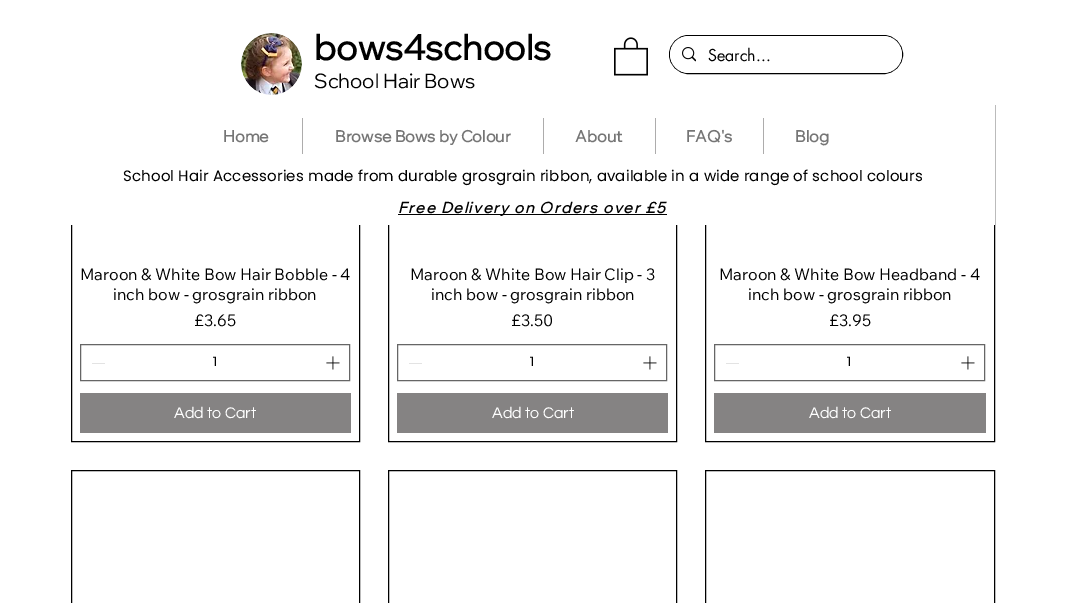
%!PS
<< /PageSize [1065 603] >> setpagedevice
/rgb { 3 { 255 div 3 1 roll } repeat setrgbcolor } def
/font { [ exch dup neg 0 0 3 -1 roll 0 0 ] selectfont } def
/roundrect { 5 dict begin { /r /h /w /y /x } { exch def } forall
  x r add y moveto x w add y 2 copy h add r arct x w add y h add x 1 index r arct
  x y h add x y r arct x y 2 copy exch w add exch r arct closepath end } def
/picture { 5 dict begin { /h /w /y /x /name } { exch def } forall
  gsave x y translate w h scale
  w h 8 [w 0 0 h 0 0] name (r) file false 3 colorimage grestore end } def
0 603 translate 1 -1 scale
4 setmiterlimit
255 255 255 rgb
0 0 1065 603 rectfill
(img/1.rgb) 241 33 61 62 picture
(img/2.rgb) 614 37 34 39 picture
0 0 0 rgb
669.5 35.5 233 38 19 roundrect stroke
255 255 255 rgb
670 36 232 37 18.5 roundrect fill
(img/3.rgb) 682 47 14 15 picture
0 0 0 rgb
71.5 105.5 288 336 rectstroke
388.5 105.5 288 336 rectstroke
705.5 105.5 289 336 rectstroke
[
  [71 105 924 120 255 255 255]
  [302 118 1 36 173 172 172]
  [543 118 1 36 173 172 172]
  [655 118 1 36 173 172 172]
  [763 118 1 36 173 172 172]
  [398 214 269 1 0 0 0]
] { aload pop rgb rectfill } forall
102 102 102 rgb
80.5 344.5 269 36 rectstroke
227 227 227 rgb
92 363 13 1 rectfill
(img/4.rgb) 326 356 14 14 picture
133 131 131 rgb
80 393 271 40 rectfill
102 102 102 rgb
397.5 344.5 269 36 rectstroke
227 227 227 rgb
409 363 13 1 rectfill
(img/4.rgb) 643 356 14 14 picture
133 131 131 rgb
397 393 271 40 rectfill
102 102 102 rgb
714.5 344.5 270 36 rectstroke
227 227 227 rgb
726 363 13 1 rectfill
(img/4.rgb) 961 356 14 14 picture
133 131 131 rgb
714 393 272 40 rectfill
0 0 0 rgb
71.5 470.5 288 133 rectstroke
388.5 470.5 288 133 rectstroke
705.5 470.5 289 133 rectstroke
/WixMadeforDisplay-Bold 35 font
314 60 moveto (bows4schools) show
/WixMadeforDisplay-Regular 20 font
314 88 moveto (School Hair Bows) show
/futura-Regular 16 font
708 61 moveto (Search...) show
/WixMadeforDisplay-Bold 16 font
117 117 117 rgb
[
  [(Home) 223 142]
  [(Browse Bows by Colour) 335 142]
  [(About) 575 142]
  [(FAQ's) 686 142]
  [(Blog) 795 142]
] { aload pop moveto show } forall
/Poppins-Regular 15 font
0 0 0 rgb
123 181 moveto 0.15 0 (School Hair Accessories made from durable grosgrain ribbon, available in a wide range of school colours) ashow
/WixMadeforDisplay-BoldItalic 15 font
398 213 moveto 1.5 0 (Free Delivery on Orders over £5) ashow
/WixMadeforText-Regular 16 font
[
  [(Maroon & White Bow Hair Bobble - 4) 80 280]
  [(inch bow - grosgrain ribbon) 113 300]
  [(£3.65) 194 326]
] { aload pop moveto show } forall
/Questrial-Regular 14 font
211 366 moveto (1) show
/Questrial-Regular 16 font
255 255 255 rgb
174 418 moveto (Add to Cart) show
/WixMadeforText-Regular 16 font
0 0 0 rgb
[
  [(Maroon & White Bow Hair Clip - 3) 410 280]
  [(inch bow - grosgrain ribbon) 431 300]
  [(£3.50) 511 326]
] { aload pop moveto show } forall
/Questrial-Regular 14 font
528 366 moveto (1) show
/Questrial-Regular 16 font
255 255 255 rgb
492 418 moveto (Add to Cart) show
/WixMadeforText-Regular 16 font
0 0 0 rgb
[
  [(Maroon & White Bow Headband - 4) 719 280]
  [(inch bow - grosgrain ribbon) 748 300]
  [(£3.95) 829 326]
] { aload pop moveto show } forall
/Questrial-Regular 14 font
845 366 moveto (1) show
/Questrial-Regular 16 font
255 255 255 rgb
809 418 moveto (Add to Cart) show
showpage
